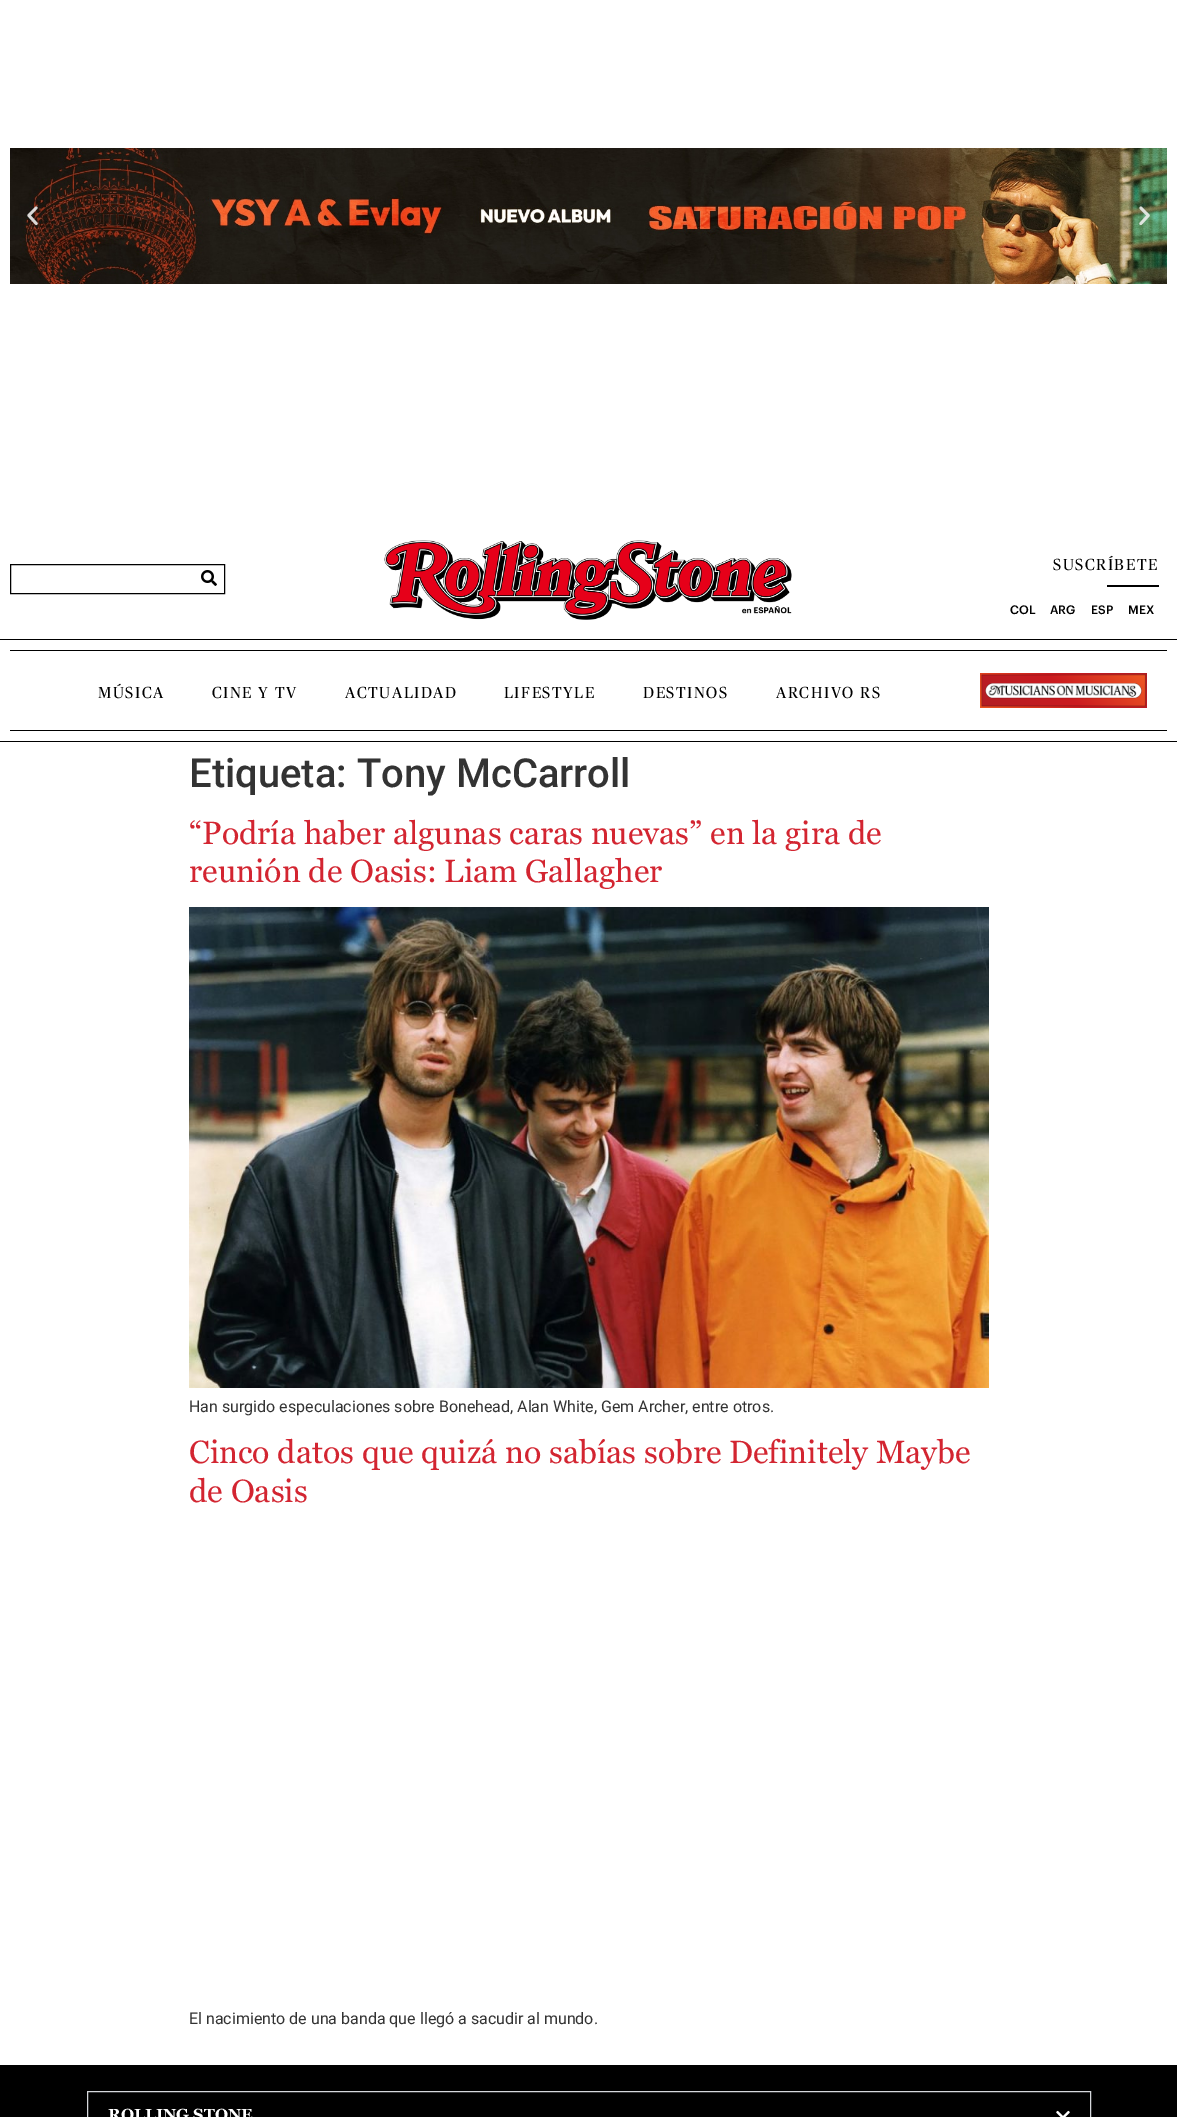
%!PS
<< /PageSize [1177 2117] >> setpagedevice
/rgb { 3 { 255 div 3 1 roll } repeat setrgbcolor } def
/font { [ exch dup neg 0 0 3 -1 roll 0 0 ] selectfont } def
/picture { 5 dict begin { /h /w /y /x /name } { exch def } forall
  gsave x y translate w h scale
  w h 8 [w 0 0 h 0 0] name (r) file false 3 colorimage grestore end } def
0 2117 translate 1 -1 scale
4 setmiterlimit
255 255 255 rgb
0 0 1177 2117 rectfill
(img/1.rgb) 10 148 1157 136 picture
(img/2.rgb) 27 206 11 20 picture
(img/3.rgb) 1139 206 11 20 picture
0 0 0 rgb
10.5 564.5 214 29 rectstroke
(img/4.rgb) 201 570 16 16 picture
(img/5.rgb) 384 540 408 80 picture
[
  [1107 585 52 2 0 0 0]
  [0 639 1177 1 0 0 0]
  [0 741 1177 1 0 0 0]
  [10 650 1157 1 0 0 0]
  [10 730 1157 1 0 0 0]
] { aload pop rgb rectfill } forall
(img/6.rgb) 980 673 167 35 picture
(img/7.rgb) 189 907 800 481 picture
0 2065 1177 52 rectfill
213 216 220 rgb
87.5 2091.5 1003 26 rectstroke
(img/8.rgb) 1056 2110 14 7 picture
/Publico-Regular 16 font
0 0 0 rgb
1053 570 moveto 1.6 0 (SUSCRÍBETE) ashow
/Graphik-Medium 12 font
[
  [(COL) 1010 614]
  [(ARG) 1050 614]
  [(ESP) 1091 614]
  [(MEX) 1128 614]
] { aload pop moveto show } forall
/Publico-Regular 16 font
98 698 moveto 1.6 0 (MÚSICA) ashow
212 698 moveto 1.6 0 (CINE Y TV) ashow
345 698 moveto 1.6 0 (ACTUALIDAD) ashow
504 698 moveto 1.6 0 (LIFESTYLE) ashow
643 698 moveto 1.6 0 (DESTINOS) ashow
776 698 moveto 1.6 0 (ARCHIVO RS) ashow
/Roboto-Medium 40 font
51 51 51 rgb
189 787 moveto (Etiqueta: Tony McCarroll) show
/Georgia-Regular 32 font
211 37 49 rgb
189 844 moveto (“Podría haber algunas caras nuevas” en la gira de) show
189 882 moveto (reunión de Oasis: Liam Gallagher) show
/Roboto-Regular 16 font
51 51 51 rgb
189 1412 moveto (Han surgido especulaciones sobre Bonehead, Alan White, Gem Archer, entre otros.) show
/Georgia-Regular 32 font
211 37 49 rgb
189 1463 moveto (Cinco datos que quizá no sabías sobre Definitely Maybe) show
189 1502 moveto (de Oasis) show
/Roboto-Regular 16 font
51 51 51 rgb
189 2024 moveto (El nacimiento de una banda que llegó a sacudir al mundo.) show
/Georgia-Bold 16 font
255 255 255 rgb
108 2120 moveto (ROLLING STONE) show
showpage
